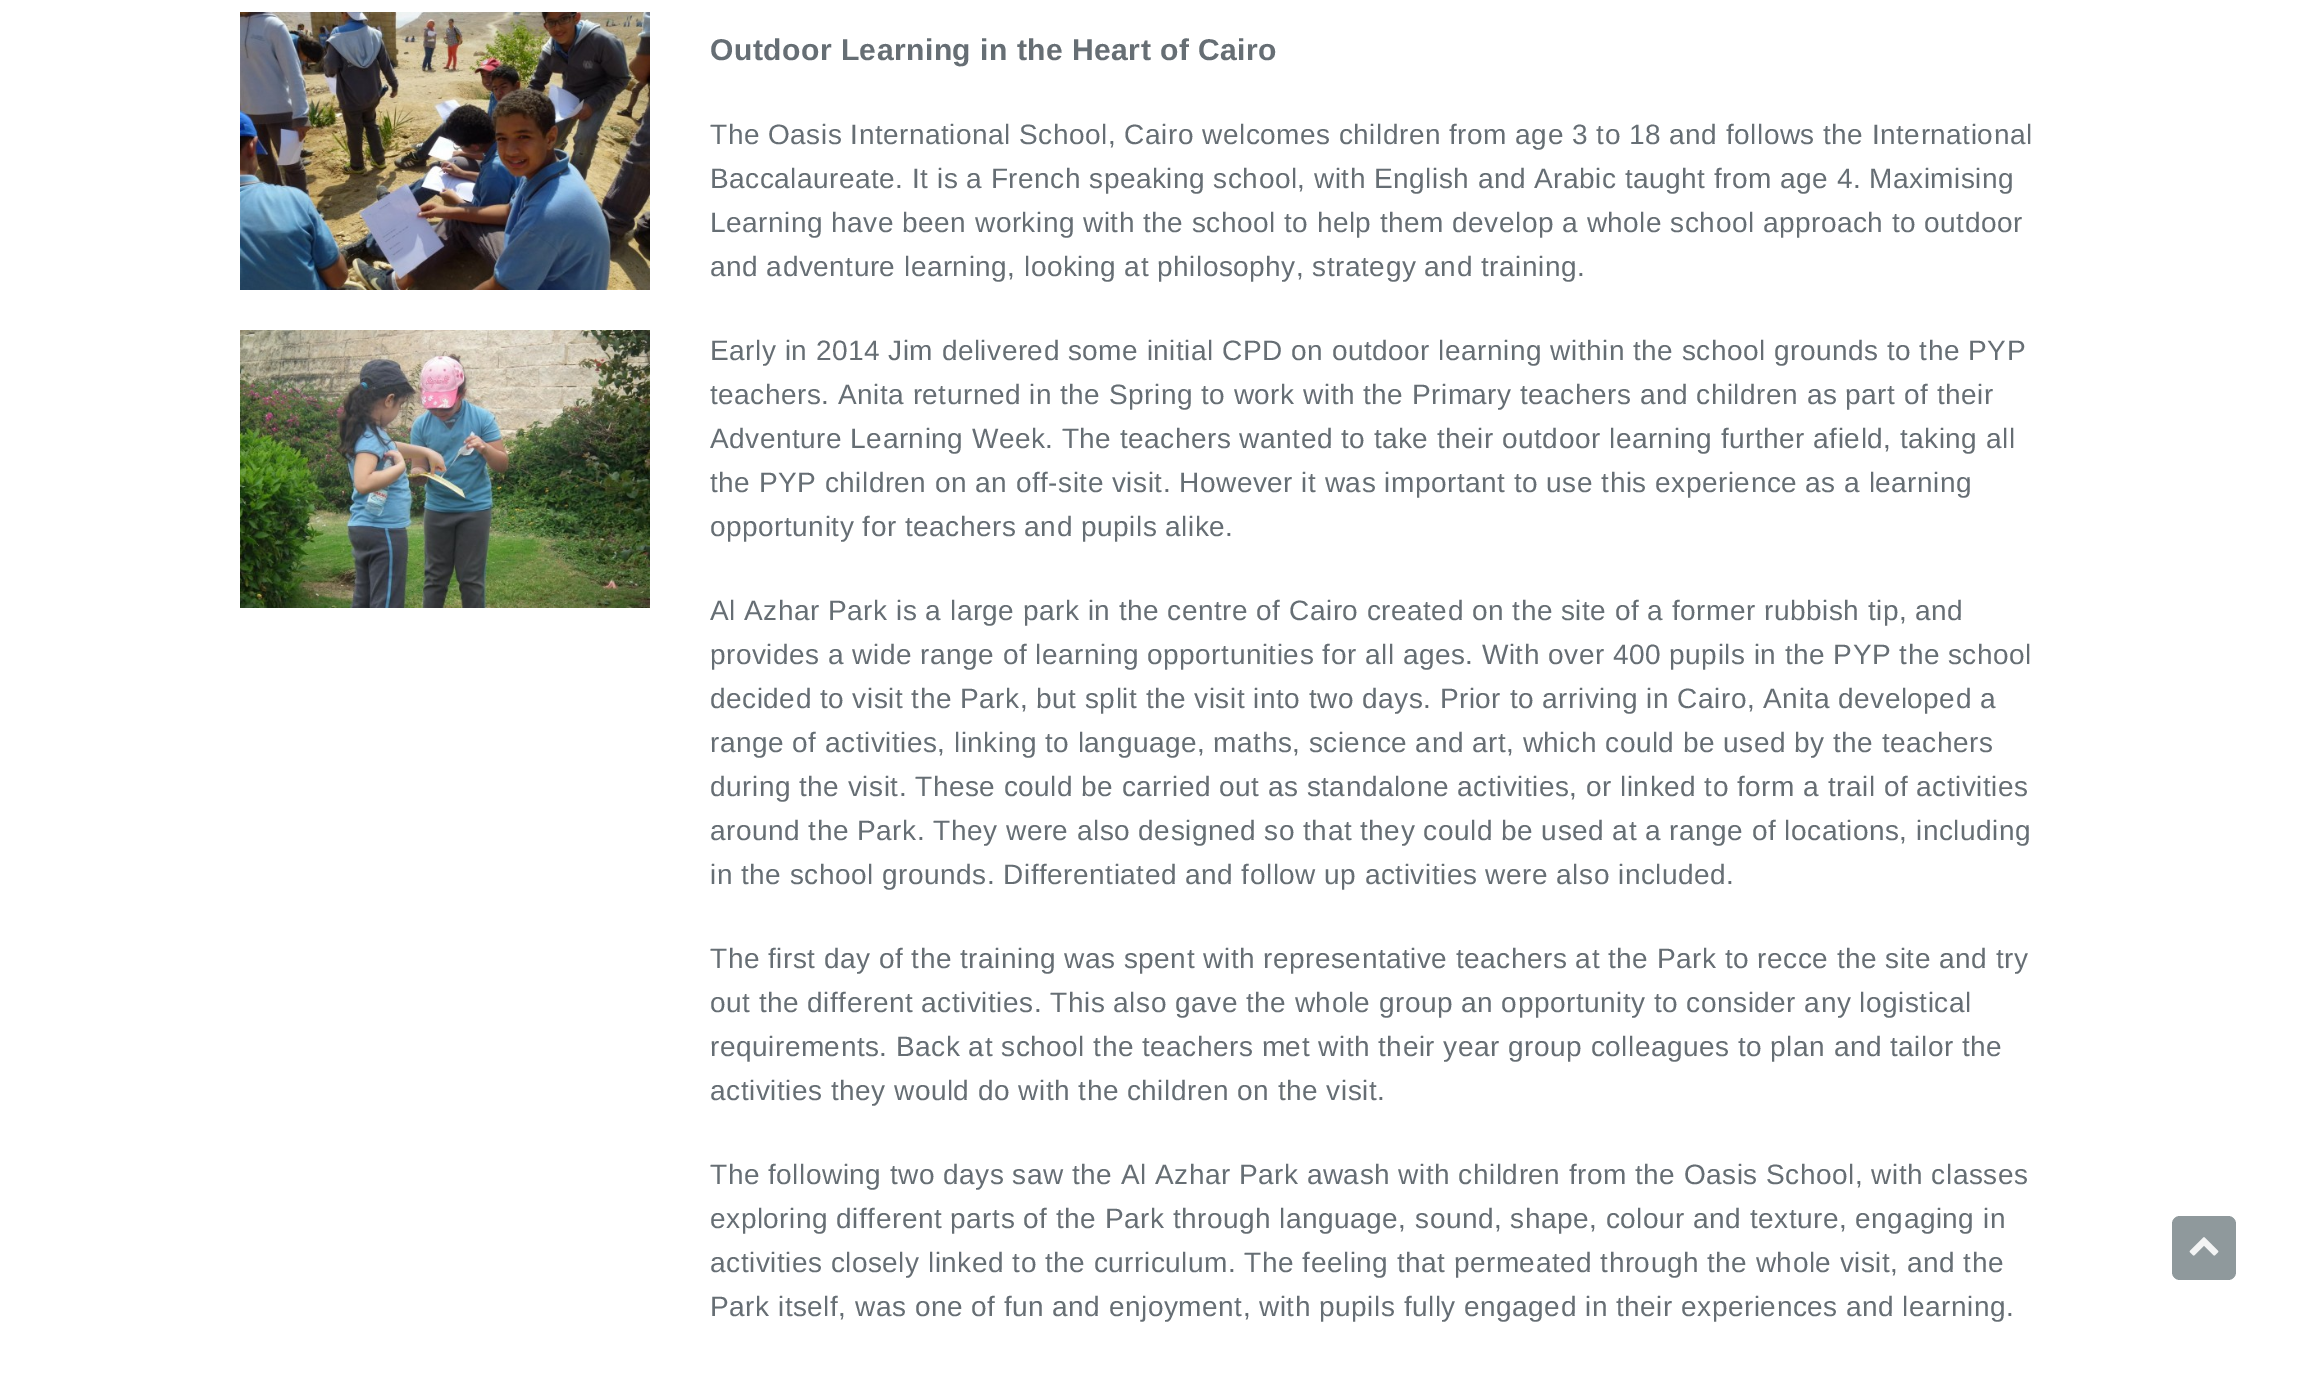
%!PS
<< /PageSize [2300 1375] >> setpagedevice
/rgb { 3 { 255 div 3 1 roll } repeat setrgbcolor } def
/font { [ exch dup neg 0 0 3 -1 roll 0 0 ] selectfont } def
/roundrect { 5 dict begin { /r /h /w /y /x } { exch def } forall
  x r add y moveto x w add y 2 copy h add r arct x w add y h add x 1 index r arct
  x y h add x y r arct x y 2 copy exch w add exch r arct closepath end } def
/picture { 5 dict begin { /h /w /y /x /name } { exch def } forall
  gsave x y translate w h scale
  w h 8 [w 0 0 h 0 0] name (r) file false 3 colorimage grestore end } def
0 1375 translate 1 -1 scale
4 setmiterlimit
255 255 255 rgb
0 0 2300 1375 rectfill
(img/1.rgb) 240 12 410 278 picture
(img/2.rgb) 240 330 410 278 picture
143 153 156 rgb
2172 1216 64 64 8 roundrect fill
(img/3.rgb) 2189 1237 30 19 picture
/LiberationSans-Bold 30 font
102 110 116 rgb
710 60 moveto 0.5 0 (Outdoor Learning in the Heart of Cairo) ashow
/LiberationSans-Regular 28 font
710 144 moveto 0.5 0 (The Oasis International School, Cairo welcomes children from age 3 to 18 and follows the International) ashow
710 188 moveto 0.5 0 (Baccalaureate. It is a French speaking school, with English and Arabic taught from age 4. Maximising) ashow
710 232 moveto 0.5 0 (Learning have been working with the school to help them develop a whole school approach to outdoor) ashow
710 276 moveto 0.5 0 (and adventure learning, looking at philosophy, strategy and training.) ashow
710 360 moveto 0.5 0 (Early in 2014 Jim delivered some initial CPD on outdoor learning within the school grounds to the PYP) ashow
710 404 moveto 0.5 0 (teachers. Anita returned in the Spring to work with the Primary teachers and children as part of their) ashow
710 448 moveto 0.5 0 (Adventure Learning Week. The teachers wanted to take their outdoor learning further afield, taking all) ashow
710 492 moveto 0.5 0 (the PYP children on an off-site visit. However it was important to use this experience as a learning) ashow
710 536 moveto 0.5 0 (opportunity for teachers and pupils alike.) ashow
710 620 moveto 0.5 0 (Al Azhar Park is a large park in the centre of Cairo created on the site of a former rubbish tip, and) ashow
710 664 moveto 0.5 0 (provides a wide range of learning opportunities for all ages. With over 400 pupils in the PYP the school) ashow
710 708 moveto 0.5 0 (decided to visit the Park, but split the visit into two days. Prior to arriving in Cairo, Anita developed a) ashow
710 752 moveto 0.5 0 (range of activities, linking to language, maths, science and art, which could be used by the teachers) ashow
710 796 moveto 0.5 0 (during the visit. These could be carried out as standalone activities, or linked to form a trail of activities) ashow
710 840 moveto 0.5 0 (around the Park. They were also designed so that they could be used at a range of locations, including) ashow
710 884 moveto 0.5 0 (in the school grounds. Differentiated and follow up activities were also included.) ashow
710 968 moveto 0.5 0 (The first day of the training was spent with representative teachers at the Park to recce the site and try) ashow
710 1012 moveto 0.5 0 (out the different activities. This also gave the whole group an opportunity to consider any logistical) ashow
710 1056 moveto 0.5 0 (requirements. Back at school the teachers met with their year group colleagues to plan and tailor the) ashow
710 1100 moveto 0.5 0 (activities they would do with the children on the visit.) ashow
710 1184 moveto 0.5 0 (The following two days saw the Al Azhar Park awash with children from the Oasis School, with classes) ashow
710 1228 moveto 0.5 0 (exploring different parts of the Park through language, sound, shape, colour and texture, engaging in) ashow
710 1272 moveto 0.5 0 (activities closely linked to the curriculum. The feeling that permeated through the whole visit, and the) ashow
710 1316 moveto 0.5 0 (Park itself, was one of fun and enjoyment, with pupils fully engaged in their experiences and learning.) ashow
showpage
